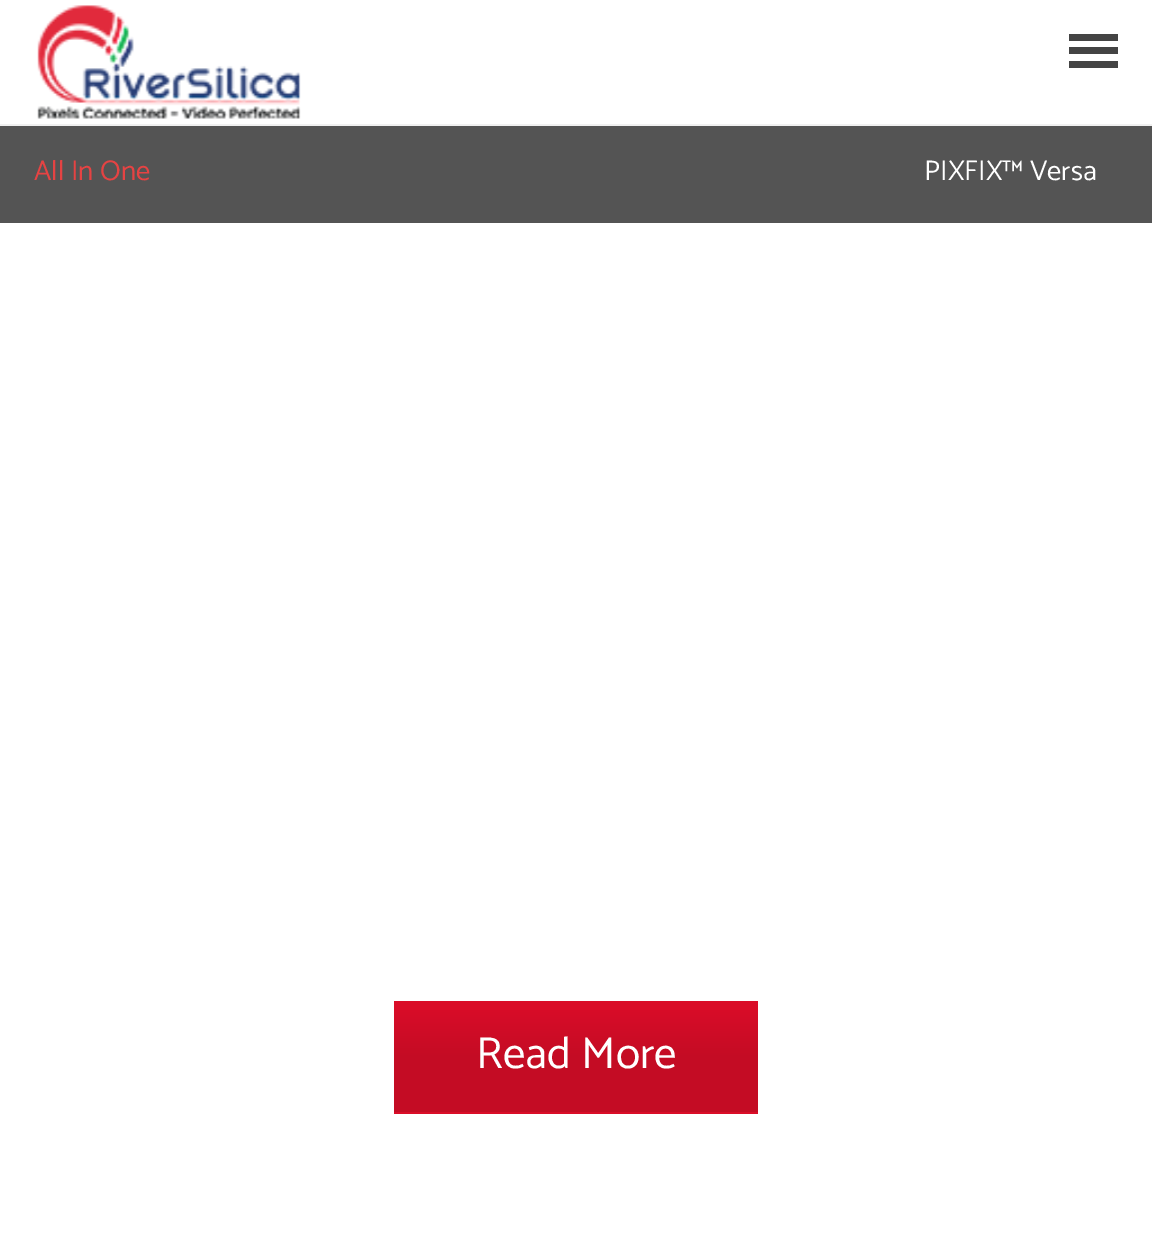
%!PS
<< /PageSize [1152 1243] >> setpagedevice
/rgb { 3 { 255 div 3 1 roll } repeat setrgbcolor } def
/font { [ exch dup neg 0 0 3 -1 roll 0 0 ] selectfont } def
/picture { 5 dict begin { /h /w /y /x /name } { exch def } forall
  gsave x y translate w h scale
  w h 8 [w 0 0 h 0 0] name (r) file false 3 colorimage grestore end } def
0 1243 translate 1 -1 scale
4 setmiterlimit
255 255 255 rgb
0 0 1152 1243 rectfill
240 240 240 rgb
0 124 1152 2 rectfill
(img/1.rgb) 37 5 264 114 picture
[
  [1069 34 49 7 68 68 68]
  [1069 47 49 7 68 68 68]
  [1069 61 49 7 68 68 68]
  [0 126 1152 97 84 84 84]
  [394 1001 364 113 218 13 40]
] { aload pop rgb rectfill } forall
gsave 394 1010 moveto 758 1010 lineto 758 1112 lineto 394 1112 lineto closepath clip newpath
<< /ShadingType 2 /ColorSpace /DeviceRGB /Coords [756 1004 756 1112] /Extend [true true] /Function << /FunctionType 3 /Domain [0 1] /Functions [<< /FunctionType 2 /Domain [0 1] /C0 [0.855 0.051 0.157] /C1 [0.769 0.047 0.141] /N 1 >> << /FunctionType 2 /Domain [0 1] /C0 [0.769 0.047 0.141] /C1 [0.769 0.047 0.141] /N 1 >>] /Bounds [0.5] /Encode [0 1 0 1] >> >> shfill grestore
/Catamaran-Regular 28.5 font
229 67 67 rgb
34 180 moveto (All In One) show
255 255 255 rgb
924 180 moveto (PIXFIX™ Versa) show
/Catamaran-Regular 45 font
476 1068 moveto (Read More) show
showpage
